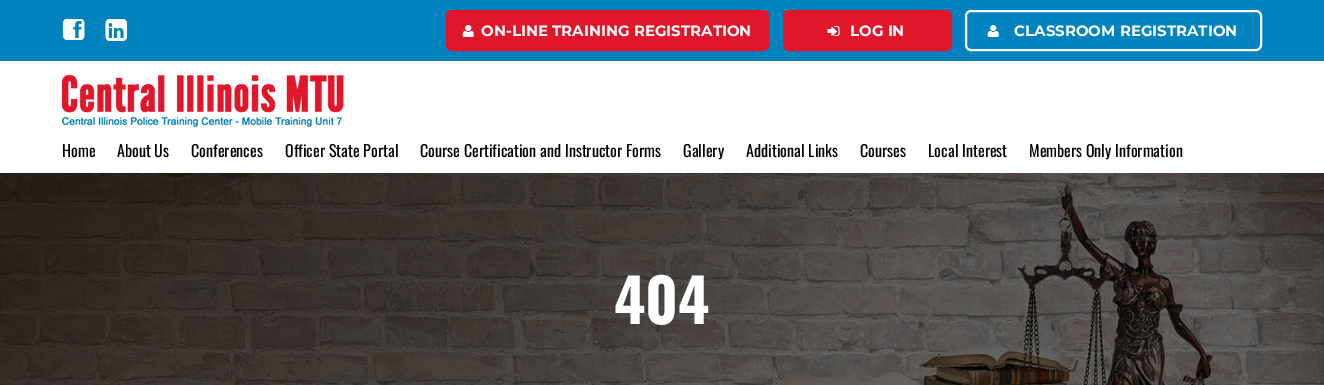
%!PS
<< /PageSize [1324 385] >> setpagedevice
/rgb { 3 { 255 div 3 1 roll } repeat setrgbcolor } def
/font { [ exch dup neg 0 0 3 -1 roll 0 0 ] selectfont } def
/roundrect { 5 dict begin { /r /h /w /y /x } { exch def } forall
  x r add y moveto x w add y 2 copy h add r arct x w add y h add x 1 index r arct
  x y h add x y r arct x y 2 copy exch w add exch r arct closepath end } def
/picture { 5 dict begin { /h /w /y /x /name } { exch def } forall
  gsave x y translate w h scale
  w h 8 [w 0 0 h 0 0] name (r) file false 3 colorimage grestore end } def
0 385 translate 1 -1 scale
4 setmiterlimit
255 255 255 rgb
0 0 1324 385 rectfill
0 130 190 rgb
0 0 1324 61 rectfill
(img/1.rgb) 62 19 23 21 picture
(img/2.rgb) 105 19 22 22 picture
224 22 43 rgb
447 11 321 39 5 roundrect gsave fill grestore
2 setlinewidth
stroke
(img/3.rgb) 462 25 12 12 picture
784 11 167 39 5 roundrect gsave fill grestore
stroke
(img/4.rgb) 827 26 13 10 picture
255 255 255 rgb
966 11 295 39 5 roundrect stroke
(img/5.rgb) 987 25 12 12 picture
(img/6.rgb) 62 75 282 52 picture
(img/7.rgb) 0 173 1324 212 picture
/Montserrat-Bold 15 font
[
  [(ON-LINE TRAINING REGISTRATION) 481 36]
  [(LOG IN) 850 36]
  [(CLASSROOM REGISTRATION) 1014 36]
] { aload pop moveto show } forall
/Oswald-Regular 16 font
0 0 0 rgb
[
  [(Home) 62 157]
  [(About Us) 117 157]
  [(Conferences) 191 157]
  [(Officer State Portal) 285 157]
  [(Course Certification and Instructor Forms) 420 157]
  [(Gallery) 683 157]
  [(Additional Links) 746 157]
  [(Courses) 860 157]
  [(Local Interest) 928 157]
  [(Members Only Information) 1029 157]
] { aload pop moveto show } forall
/Oswald-Bold 60 font
255 255 255 rgb
614 324 moveto (404) show
showpage
